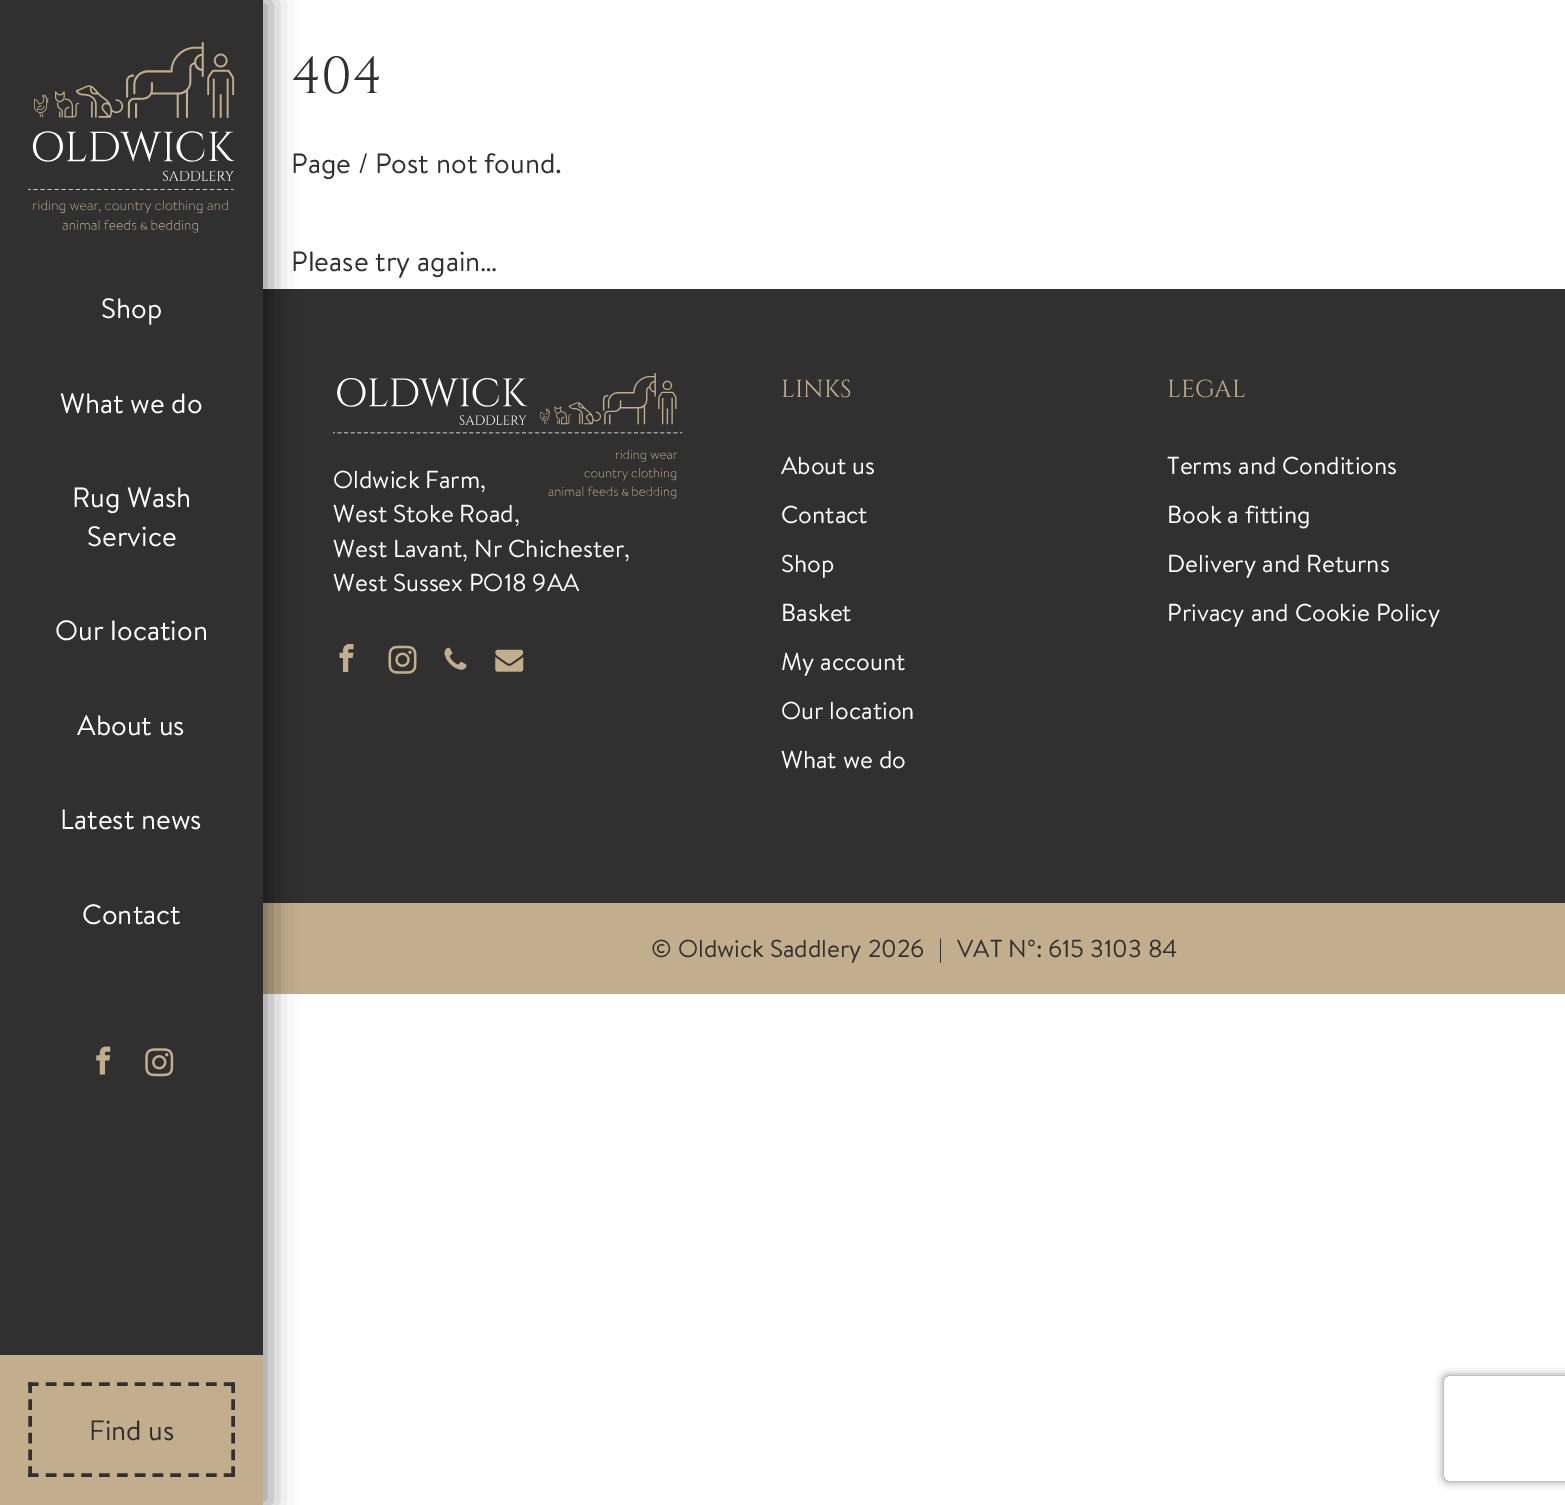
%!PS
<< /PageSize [1565 1505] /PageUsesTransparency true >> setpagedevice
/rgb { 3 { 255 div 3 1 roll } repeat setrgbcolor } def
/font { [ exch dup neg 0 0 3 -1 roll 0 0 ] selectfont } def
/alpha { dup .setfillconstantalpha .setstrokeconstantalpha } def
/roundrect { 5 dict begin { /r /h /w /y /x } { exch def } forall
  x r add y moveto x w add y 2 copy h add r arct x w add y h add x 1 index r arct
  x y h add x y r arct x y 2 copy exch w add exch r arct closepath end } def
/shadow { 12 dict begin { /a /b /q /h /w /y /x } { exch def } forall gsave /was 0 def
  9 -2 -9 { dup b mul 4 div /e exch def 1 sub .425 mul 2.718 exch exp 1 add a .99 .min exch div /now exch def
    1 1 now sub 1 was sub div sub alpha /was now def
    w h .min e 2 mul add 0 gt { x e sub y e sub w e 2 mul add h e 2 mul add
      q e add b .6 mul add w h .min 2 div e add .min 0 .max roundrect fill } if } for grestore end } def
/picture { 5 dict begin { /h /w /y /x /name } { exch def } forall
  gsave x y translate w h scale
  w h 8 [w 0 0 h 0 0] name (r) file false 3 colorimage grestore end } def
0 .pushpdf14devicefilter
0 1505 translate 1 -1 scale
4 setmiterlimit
255 255 255 rgb
0 0 1565 1505 rectfill
48 48 48 rgb
263 289 1302 614 rectfill
194 173 141 rgb
263 903 1302 91 rectfill
0 0 0 rgb
9 0 262 1505 0 13 0.4 shadow
48 48 48 rgb
0 0 263 1355 rectfill
(img/1.rgb) 28 42 207 191 picture
194 173 141 rgb
0 1355 263 150 rectfill
48 48 48 rgb
3.5 setlinewidth
[10.5 7.31] 0 setdash
28 1384 moveto 234.5 1384 lineto stroke
[10.5 6.3] 0 setdash
233 1382.5 moveto 233 1477 lineto stroke
[10.5 7.31] 0 setdash
28 1475 moveto 234.5 1475 lineto stroke
[10.5 6.3] 0 setdash
30 1382.5 moveto 30 1477 lineto stroke
(img/2.rgb) 96 1046 15 29 picture
(img/3.rgb) 145 1048 29 29 picture
(img/4.rgb) 333 373 350 126 picture
(img/5.rgb) 339 644 15 28 picture
(img/6.rgb) 388 645 29 29 picture
(img/7.rgb) 444 647 23 23 picture
(img/8.rgb) 495 649 29 23 picture
gsave
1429 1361 moveto 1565 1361 lineto 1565 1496 lineto 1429 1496 lineto closepath 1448 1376 moveto 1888 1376 lineto 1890 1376 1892 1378 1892 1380 curveto 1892 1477 lineto 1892 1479 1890 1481 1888 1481 curveto 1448 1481 lineto 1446 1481 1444 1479 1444 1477 curveto 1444 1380 lineto 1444 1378 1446 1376 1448 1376 curveto closepath eoclip newpath
128 128 128 rgb
1444 1376 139 105 4 4.5 1 shadow
grestore
/Cinzel-Regular 52 font
291 93 moveto (404) show
/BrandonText-Regular 28 font
291 173 moveto (Page / Post not found.) show
291 271 moveto (Please try again…) show
255 255 255 rgb
[
  [(Shop) 101 318]
  [(What we do) 60 413]
  [(Rug Wash) 72 507]
  [(Service) 87 546]
  [(Our location) 55 640]
  [(About us) 77 735]
  [(Latest news) 60 829]
  [(Contact) 82 924]
] { aload pop moveto show } forall
48 48 48 rgb
89 1440 moveto (Find us) show
/BrandonText-Regular 24.5 font
255 255 255 rgb
[
  [(Oldwick Farm,) 333 488]
  [(West Stoke Road,) 333 522]
  [(West Lavant, Nr Chichester,) 333 557]
  [(West Sussex PO18 9AA) 333 591]
] { aload pop moveto show } forall
/Cinzel-Regular 24.5 font
194 173 141 rgb
781 397 moveto (LINKS) show
/BrandonText-Regular 24.5 font
255 255 255 rgb
[
  [(About us) 781 474]
  [(Contact) 781 523]
  [(Shop) 781 572]
  [(Basket) 781 621]
  [(My account) 781 670]
  [(Our location) 781 719]
  [(What we do) 781 768]
] { aload pop moveto show } forall
/Cinzel-Regular 24.5 font
194 173 141 rgb
1167 397 moveto (LEGAL) show
/BrandonText-Regular 24.5 font
255 255 255 rgb
[
  [(Terms and Conditions) 1167 474]
  [(Book a fitting) 1167 523]
  [(Delivery and Returns) 1167 572]
  [(Privacy and Cookie Policy) 1167 621]
] { aload pop moveto show } forall
48 48 48 rgb
[
  [(© Oldwick Saddlery 2026) 651 957]
  [(|) 938 957]
  [(VAT N°: 615 3103 84) 957 957]
] { aload pop moveto show } forall
.poppdf14devicefilter showpage
